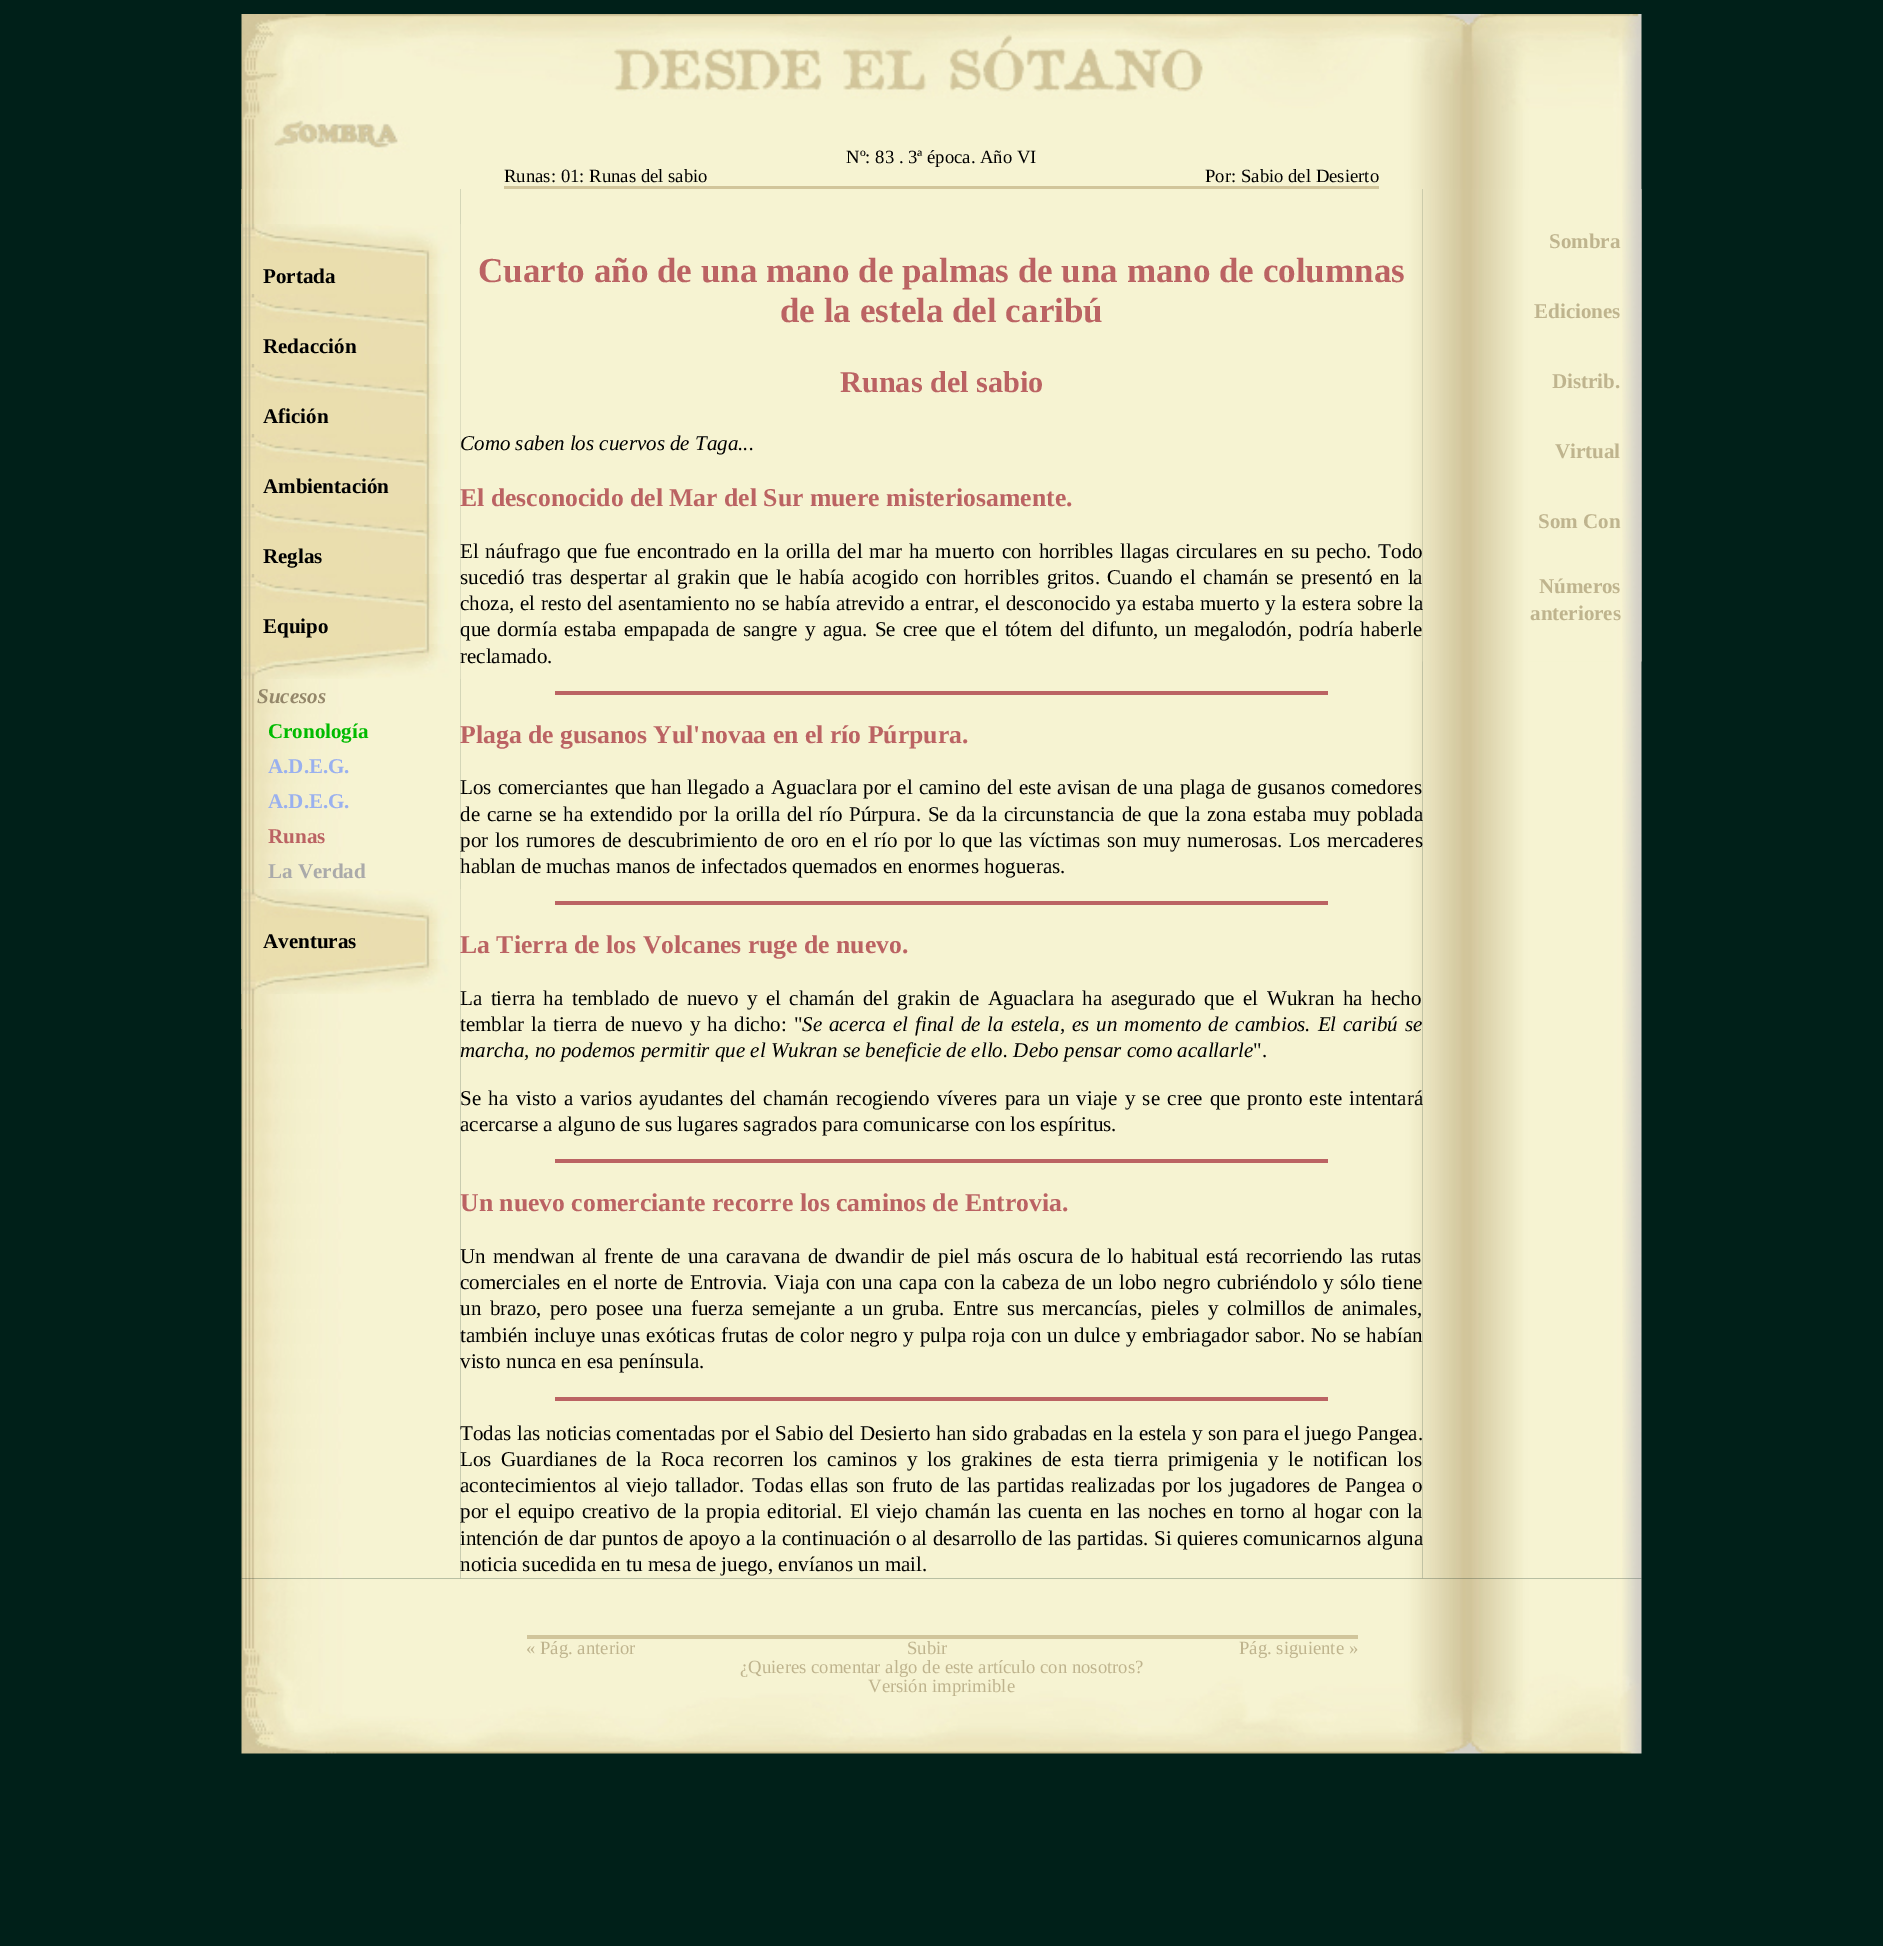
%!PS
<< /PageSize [1883 1946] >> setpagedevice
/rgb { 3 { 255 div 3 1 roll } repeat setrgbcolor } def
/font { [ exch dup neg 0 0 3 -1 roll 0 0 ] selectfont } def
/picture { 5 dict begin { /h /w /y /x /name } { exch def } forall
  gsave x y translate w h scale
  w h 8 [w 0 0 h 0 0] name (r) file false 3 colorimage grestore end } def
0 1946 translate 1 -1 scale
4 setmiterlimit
0 32 25 rgb
0 0 1883 1946 rectfill
(img/1.rgb) 241 14 1401 175 picture
209 197 155 rgb
504 186 875 3 rectfill
(img/2.rgb) 241 189 220 1390 picture
(img/3.rgb) 241 189 220 840 picture
(img/4.rgb) 241 224 220 35 picture
(img/5.rgb) 241 259 220 35 picture
(img/6.rgb) 241 294 220 35 picture
(img/7.rgb) 241 329 220 35 picture
(img/6.rgb) 241 364 220 35 picture
(img/8.rgb) 241 399 220 35 picture
(img/6.rgb) 241 434 220 35 picture
(img/9.rgb) 241 469 220 35 picture
(img/6.rgb) 241 504 220 35 picture
(img/10.rgb) 241 539 220 35 picture
(img/6.rgb) 241 574 220 35 picture
(img/11.rgb) 241 609 220 35 picture
(img/12.rgb) 241 644 220 35 picture
(img/4.rgb) 241 889 220 35 picture
(img/13.rgb) 241 924 220 35 picture
(img/12.rgb) 241 959 220 35 picture
(img/14.rgb) 460 189 963 1390 picture
[
  [555 691 773 4 187 99 99]
  [555 901 773 4 187 99 99]
  [555 1159 773 4 187 99 99]
  [555 1397 773 4 187 99 99]
] { aload pop rgb rectfill } forall
(img/15.rgb) 1422 189 220 1390 picture
(img/16.rgb) 1422 189 220 473 picture
(img/17.rgb) 241 1578 1401 176 picture
209 197 155 rgb
527 1635 831 4 rectfill
/LiberationSerif-Regular 18.7 font
0 0 0 rgb
[
  [(Nº: 83 . 3ª época. Año VI) 846 163]
  [(Runas: 01: Runas del sabio) 504 182]
  [(Por: Sabio del Desierto) 1205 182]
] { aload pop moveto show } forall
/LiberationSerif-Bold 21 font
[
  [(Portada) 263 283]
  [(Redacción) 263 353]
  [(Afición) 263 423]
  [(Ambientación) 263 493]
  [(Reglas) 263 563]
  [(Equipo) 263 633]
] { aload pop moveto show } forall
/LiberationSerif-BoldItalic 21 font
148 135 106 rgb
257 703 moveto (Sucesos) show
/LiberationSerif-Bold 21 font
0 187 0 rgb
268 738 moveto (Cronología) show
153 176 239 rgb
268 773 moveto (A.D.E.G.) show
268 808 moveto (A.D.E.G.) show
187 99 99 rgb
268 843 moveto (Runas) show
170 170 170 rgb
268 878 moveto (La Verdad) show
0 0 0 rgb
263 948 moveto (Aventuras) show
/LiberationSerif-Bold 35 font
187 99 99 rgb
478 282 moveto (Cuarto año de una mano de palmas de una mano de columnas) show
780 322 moveto (de la estela del caribú) show
/LiberationSerif-Bold 30.25 font
840 392 moveto (Runas del sabio) show
/LiberationSerif-Italic 21 font
0 0 0 rgb
460 450 moveto (Como saben los cuervos de Taga...) show
/LiberationSerif-Bold 25.7 font
187 99 99 rgb
460 506 moveto (El desconocido del Mar del Sur muere misteriosamente.) show
/LiberationSerif-Regular 21 font
0 0 0 rgb
460 558 moveto 1.5 0 32 (El náufrago que fue encontrado en la orilla del mar ha muerto con horribles llagas circulares en su pecho. Todo) widthshow
460 584 moveto 2.4 0 32 (sucedió tras despertar al grakin que le había acogido con horribles gritos. Cuando el chamán se presentó en la) widthshow
460 610 moveto 0.4 0 32 (choza, el resto del asentamiento no se había atrevido a entrar, el desconocido ya estaba muerto y la estera sobre la) widthshow
460 636 moveto 1.9 0 32 (que dormía estaba empapada de sangre y agua. Se cree que el tótem del difunto, un megalodón, podría haberle) widthshow
460 663 moveto (reclamado.) show
/LiberationSerif-Bold 25.7 font
187 99 99 rgb
460 743 moveto (Plaga de gusanos Yul'novaa en el río Púrpura.) show
/LiberationSerif-Regular 21 font
0 0 0 rgb
460 794 moveto 0.9 0 32 (Los comerciantes que han llegado a Aguaclara por el camino del este avisan de una plaga de gusanos comedores) widthshow
460 821 moveto 1.5 0 32 (de carne se ha extendido por la orilla del río Púrpura. Se da la circunstancia de que la zona estaba muy poblada) widthshow
460 847 moveto 1.5 0 32 (por los rumores de descubrimiento de oro en el río por lo que las víctimas son muy numerosas. Los mercaderes) widthshow
460 873 moveto (hablan de muchas manos de infectados quemados en enormes hogueras.) show
/LiberationSerif-Bold 25.7 font
187 99 99 rgb
460 953 moveto (La Tierra de los Volcanes ruge de nuevo.) show
/LiberationSerif-Regular 21 font
0 0 0 rgb
460 1005 moveto 3.25 0 32 (La tierra ha temblado de nuevo y el chamán del grakin de Aguaclara ha asegurado que el Wukran ha hecho) widthshow
460 1031 moveto 1.75 0 32 (temblar la tierra de nuevo y ha dicho: ") widthshow
/LiberationSerif-Italic 21 font
802 1031 moveto 1.75 0 32 (Se acerca el final de la estela, es un momento de cambios. El caribú se) widthshow
460 1057 moveto (marcha, no podemos permitir que el Wukran se beneficie de ello. Debo pensar como acallarle) show
/LiberationSerif-Regular 21 font
1253 1057 moveto (".) show
460 1105 moveto 2.1 0 32 (Se ha visto a varios ayudantes del chamán recogiendo víveres para un viaje y se cree que pronto este intentará) widthshow
460 1131 moveto (acercarse a alguno de sus lugares sagrados para comunicarse con los espíritus.) show
/LiberationSerif-Bold 25.7 font
187 99 99 rgb
460 1211 moveto (Un nuevo comerciante recorre los caminos de Entrovia.) show
/LiberationSerif-Regular 21 font
0 0 0 rgb
460 1263 moveto 2.1 0 32 (Un mendwan al frente de una caravana de dwandir de piel más oscura de lo habitual está recorriendo las rutas) widthshow
460 1289 moveto 1.1 0 32 (comerciales en el norte de Entrovia. Viaja con una capa con la cabeza de un lobo negro cubriéndolo y sólo tiene) widthshow
460 1315 moveto 3.25 0 32 (un brazo, pero posee una fuerza semejante a un gruba. Entre sus mercancías, pieles y colmillos de animales,) widthshow
460 1342 moveto 0.75 0 32 (también incluye unas exóticas frutas de color negro y pulpa roja con un dulce y embriagador sabor. No se habían) widthshow
460 1368 moveto (visto nunca en esa península.) show
460 1440 moveto 0.25 0 32 (Todas las noticias comentadas por el Sabio del Desierto han sido grabadas en la estela y son para el juego Pangea.) widthshow
460 1466 moveto 4.4 0 32 (Los Guardianes de la Roca recorren los caminos y los grakines de esta tierra primigenia y le notifican los) widthshow
460 1492 moveto 1.9 0 32 (acontecimientos al viejo tallador. Todas ellas son fruto de las partidas realizadas por los jugadores de Pangea o) widthshow
460 1518 moveto 2 0 32 (por el equipo creativo de la propia editorial. El viejo chamán las cuenta en las noches en torno al hogar con la) widthshow
460 1545 moveto 0.4 0 32 (intención de dar puntos de apoyo a la continuación o al desarrollo de las partidas. Si quieres comunicarnos alguna) widthshow
460 1571 moveto (noticia sucedida en tu mesa de juego, envíanos un mail.) show
/LiberationSerif-Bold 21 font
191 180 142 rgb
[
  [(Sombra) 1549 248]
  [(Ediciones) 1534 318]
  [(Distrib.) 1552 388]
  [(Virtual) 1555 458]
  [(Som Con) 1538 528]
  [(Números) 1539 593]
  [(anteriores) 1530 620]
] { aload pop moveto show } forall
/LiberationSerif-Regular 18.7 font
[
  [(« Pág. anterior) 526 1654]
  [(Subir) 907 1654]
  [(Pág. siguiente ») 1239 1654]
  [(¿Quieres comentar algo de este artículo con nosotros?) 740 1673]
  [(Versión imprimible) 868 1692]
] { aload pop moveto show } forall
showpage
